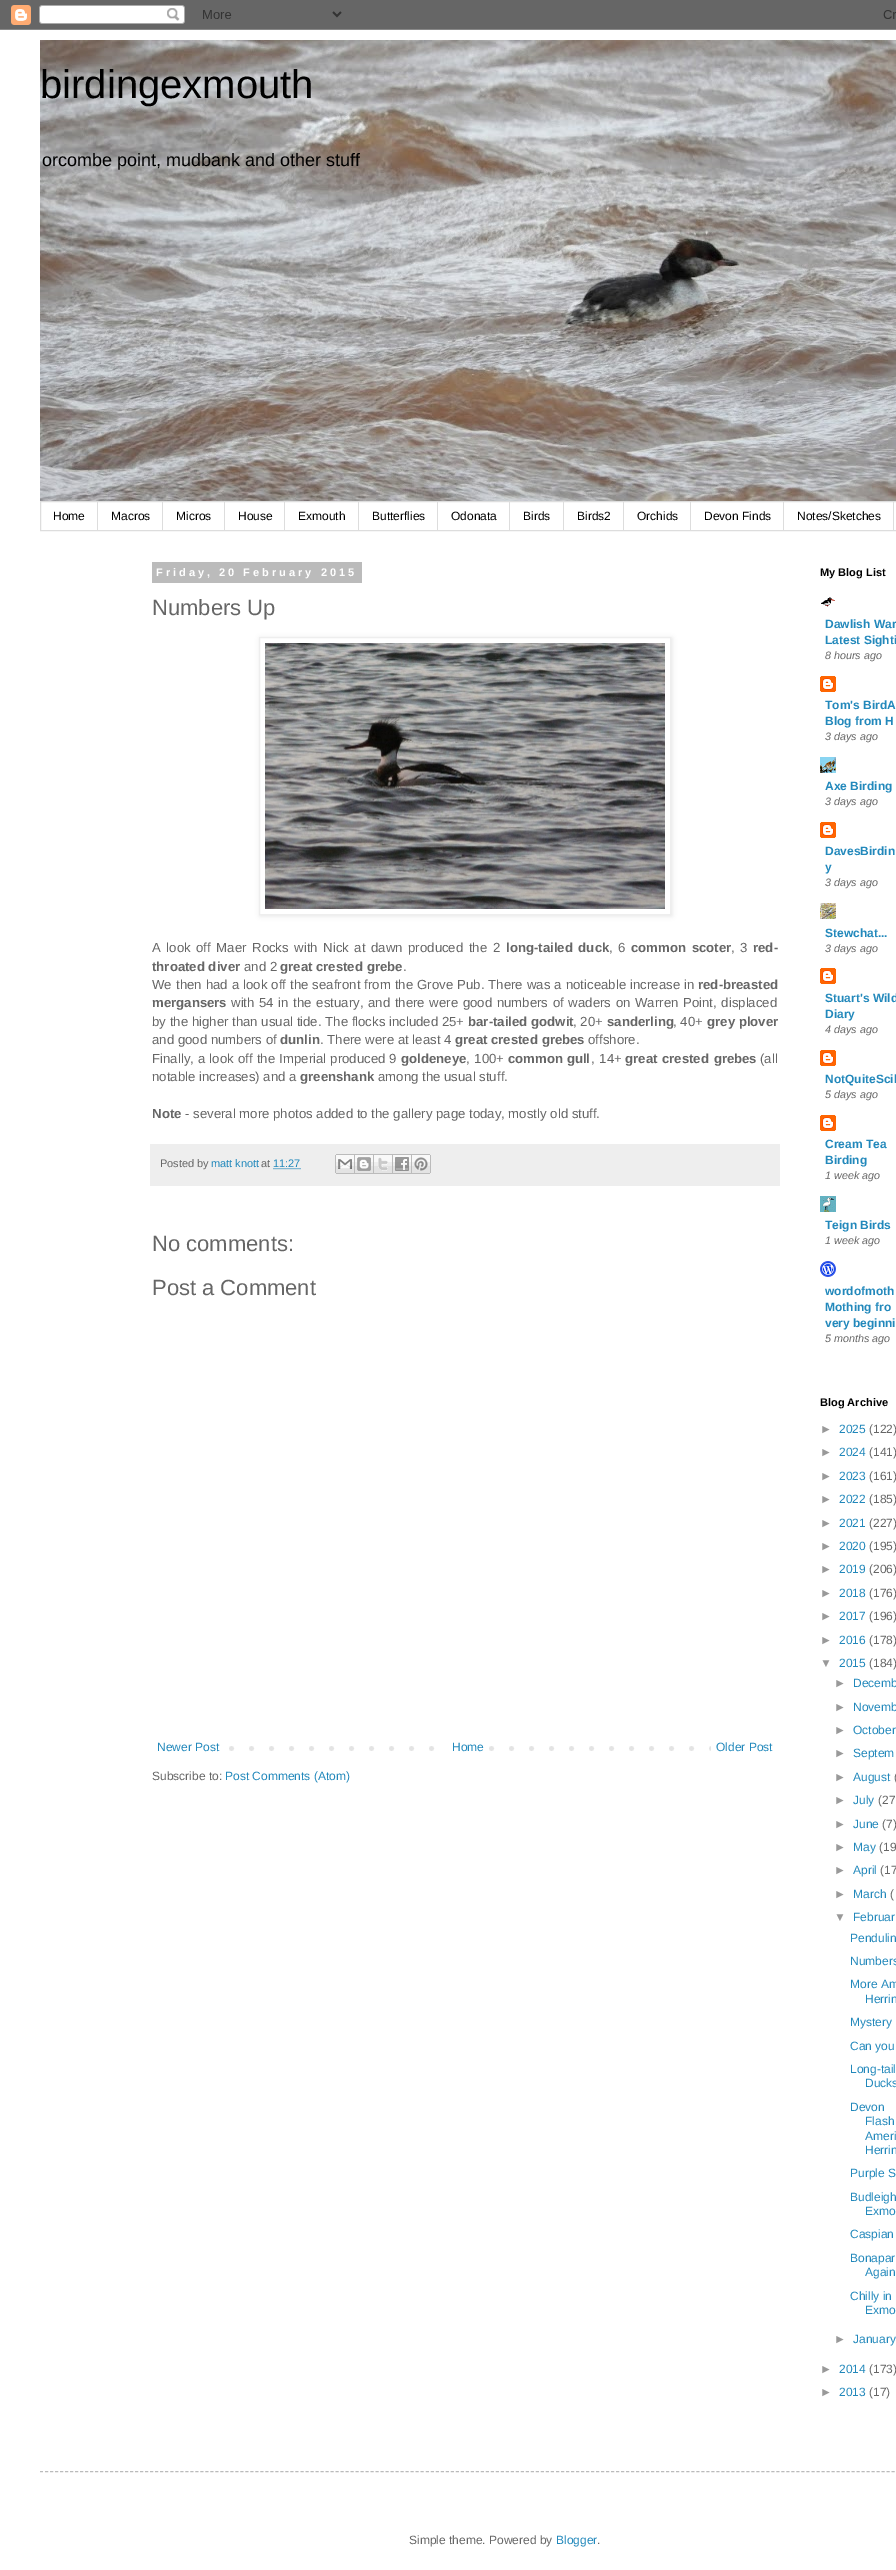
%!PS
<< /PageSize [896 2570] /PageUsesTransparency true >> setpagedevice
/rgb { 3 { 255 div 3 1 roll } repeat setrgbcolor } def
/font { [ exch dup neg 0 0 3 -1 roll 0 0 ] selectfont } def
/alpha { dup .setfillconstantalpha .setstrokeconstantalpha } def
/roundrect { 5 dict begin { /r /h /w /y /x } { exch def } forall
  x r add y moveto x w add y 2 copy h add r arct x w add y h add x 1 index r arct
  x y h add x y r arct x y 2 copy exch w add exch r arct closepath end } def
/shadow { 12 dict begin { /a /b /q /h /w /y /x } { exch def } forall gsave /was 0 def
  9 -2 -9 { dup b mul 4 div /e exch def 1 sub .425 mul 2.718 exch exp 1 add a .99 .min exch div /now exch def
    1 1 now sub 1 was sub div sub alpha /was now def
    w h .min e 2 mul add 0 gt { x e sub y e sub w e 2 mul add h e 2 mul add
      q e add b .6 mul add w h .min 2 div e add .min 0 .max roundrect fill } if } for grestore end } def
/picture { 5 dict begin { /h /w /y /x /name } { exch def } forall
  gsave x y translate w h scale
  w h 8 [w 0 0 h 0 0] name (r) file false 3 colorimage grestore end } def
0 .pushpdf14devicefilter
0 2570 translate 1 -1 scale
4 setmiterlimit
0 0 0 rgb
0 0 896 2570 rectfill
(img/1.rgb) 0 0 896 30 picture
255 255 255 rgb
0 30 896 2540 rectfill
(img/2.rgb) 40 40 856 461 picture
221 221 221 rgb
40.5 501.5 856 29 rectstroke
[
  [97 502 1 28 221 221 221]
  [162 502 1 28 221 221 221]
  [224 502 1 28 221 221 221]
  [284 502 1 28 221 221 221]
  [358 502 1 28 221 221 221]
  [437 502 1 28 221 221 221]
  [509 502 1 28 221 221 221]
  [563 502 1 28 221 221 221]
  [623 502 1 28 221 221 221]
  [690 502 1 28 221 221 221]
  [783 502 1 28 221 221 221]
  [893 502 1 28 221 221 221]
  [152 562 210 21 187 187 187]
] { aload pop rgb rectfill } forall
gsave
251 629 moveto 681 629 lineto 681 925 lineto 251 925 lineto closepath 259 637 moveto 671 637 lineto 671 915 lineto 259 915 lineto closepath eoclip newpath
0 0 0 rgb
260 638 412 278 0 2.5 0.1 shadow
grestore
238 238 238 rgb
259.5 637.5 411 277 rectstroke
(img/3.rgb) 265 643 400 266 picture
150 1144 630 42 rectfill
34 136 187 rgb
[1 1] 0 setdash
273.5 1168.5 moveto 300.5 1168.5 lineto stroke
(img/4.rgb) 335 1154 20 20 picture
(img/5.rgb) 355 1154 19 20 picture
(img/6.rgb) 374 1154 19 20 picture
(img/7.rgb) 393 1154 19 20 picture
(img/8.rgb) 412 1154 19 20 picture
(img/9.rgb) 229 1746 482 5 picture
255 255 255 rgb
449 1746 26 5 rectfill
(img/10.rgb) 821 597 14 10 picture
(img/11.rgb) 820 676 16 16 picture
(img/12.rgb) 820 757 16 16 picture
(img/11.rgb) 820 822 16 16 picture
(img/13.rgb) 820 903 16 16 picture
(img/11.rgb) 820 968 16 16 picture
(img/11.rgb) 820 1050 16 16 picture
(img/11.rgb) 820 1115 16 16 picture
(img/14.rgb) 820 1196 16 16 picture
(img/15.rgb) 820 1261 16 16 picture
187 187 187 rgb
[3 2.01] 0 setdash
40 2471.5 moveto 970 2471.5 lineto stroke
/LiberationSans-Regular 40 font
0 0 0 rgb
40 98 moveto (birdingexmouth) show
/LiberationSans-Regular 18 font
42 166 moveto (orcombe point, mudbank and other stuff) show
/LiberationSans-Regular 12 font
[
  [(Home) 53 520]
  [(Macros) 111 520]
  [(Micros) 176 520]
  [(House) 238 520]
  [(Exmouth) 298 520]
  [(Butterflies) 372 520]
  [(Odonata) 451 520]
  [(Birds) 523 520]
  [(Birds2) 577 520]
  [(Orchids) 637 520]
  [(Devon Finds) 704 520]
  [(Notes/Sketches) 797 520]
] { aload pop moveto show } forall
/LiberationSans-Bold 11 font
255 255 255 rgb
156 576 moveto 3 0 (Friday, 20 February 2015) ashow
/LiberationSans-Regular 22 font
102 102 102 rgb
152 615 moveto (Numbers Up) show
/LiberationSans-Regular 13.2 font
152 952 moveto 1.9 0 32 (A look off Maer Rocks with Nick at dawn produced the 2) widthshow
/LiberationSans-Bold 13.2 font
506 952 moveto 2 0 32 (long-tailed duck) widthshow
/LiberationSans-Regular 13.2 font
609 952 moveto 2 0 32 (, 6) widthshow
/LiberationSans-Bold 13.2 font
631 952 moveto 2 0 32 (common scoter) widthshow
/LiberationSans-Regular 13.2 font
731 952 moveto 2 0 32 (, 3) widthshow
/LiberationSans-Bold 13.2 font
753 952 moveto (red-) show
152 971 moveto (throated diver) show
/LiberationSans-Regular 13.2 font
244 971 moveto (and 2) show
/LiberationSans-Bold 13.2 font
280 971 moveto (great crested grebe) show
/LiberationSans-Regular 13.2 font
403 971 moveto (.) show
152 989 moveto 0.4 0 32 (We then had a look off the seafront from the Grove Pub. There was a noticeable increase in) widthshow
/LiberationSans-Bold 13.2 font
698 989 moveto (red-breasted) show
152 1007 moveto (mergansers) show
/LiberationSans-Regular 13.2 font
231 1007 moveto 1 0 32 (with 54 in the estuary, and there were good numbers of waders on Warren Point, displaced) widthshow
152 1026 moveto (by the higher than usual tide. The flocks included 25+) show
/LiberationSans-Bold 13.2 font
468 1026 moveto (bar-tailed godwit) show
/LiberationSans-Regular 13.2 font
573 1026 moveto (, 20+) show
/LiberationSans-Bold 13.2 font
607 1026 moveto (sanderling) show
/LiberationSans-Regular 13.2 font
673 1026 moveto (, 40+) show
/LiberationSans-Bold 13.2 font
707 1026 moveto (grey plover) show
/LiberationSans-Regular 13.2 font
152 1044 moveto (and good numbers of) show
/LiberationSans-Bold 13.2 font
280 1044 moveto (dunlin) show
/LiberationSans-Regular 13.2 font
320 1044 moveto (. There were at least 4) show
/LiberationSans-Bold 13.2 font
455 1044 moveto (great crested grebes) show
/LiberationSans-Regular 13.2 font
588 1044 moveto (offshore.) show
152 1063 moveto 0.5 0 32 (Finally, a look off the Imperial produced 9) widthshow
/LiberationSans-Bold 13.2 font
401 1063 moveto (goldeneye) show
/LiberationSans-Regular 13.2 font
466 1063 moveto 1 0 32 (, 100+) widthshow
/LiberationSans-Bold 13.2 font
508 1063 moveto (common gull) show
/LiberationSans-Regular 13.2 font
591 1063 moveto 1 0 32 (, 14+) widthshow
/LiberationSans-Bold 13.2 font
625 1063 moveto 1 0 32 (great crested grebes) widthshow
/LiberationSans-Regular 13.2 font
760 1063 moveto (\(all) show
152 1081 moveto (notable increases\) and a) show
/LiberationSans-Bold 13.2 font
300 1081 moveto (greenshank) show
/LiberationSans-Regular 13.2 font
378 1081 moveto (among the usual stuff.) show
/LiberationSans-Bold 13.2 font
152 1118 moveto (Note) show
/LiberationSans-Regular 13.2 font
185 1118 moveto (- several more photos added to the gallery page today, mostly old stuff.) show
/LiberationSans-Regular 11 font
160 1167 moveto (Posted by) show
34 136 187 rgb
211 1167 moveto (matt knott) show
102 102 102 rgb
261 1167 moveto (at) show
34 136 187 rgb
273 1167 moveto (11:27) show
/LiberationSans-Regular 22 font
102 102 102 rgb
152 1251 moveto (No comments:) show
152 1295 moveto (Post a Comment) show
/LiberationSans-Regular 12 font
34 136 187 rgb
[
  [(Newer Post) 157 1751]
  [(Home) 452 1751]
  [(Older Post) 716 1751]
] { aload pop moveto show } forall
102 102 102 rgb
152 1780 moveto (Subscribe to:) show
34 136 187 rgb
225 1780 moveto (Post Comments \(Atom\)) show
/LiberationSans-Bold 11 font
0 0 0 rgb
820 576 moveto (My Blog List) show
/LiberationSans-Bold 12 font
34 136 187 rgb
825 628 moveto (Dawlish War) show
825 644 moveto (Latest Sighti) show
/LiberationSans-Italic 10.75 font
102 102 102 rgb
825 659 moveto (8 hours ago) show
/LiberationSans-Bold 12 font
34 136 187 rgb
825 709 moveto (Tom's BirdA) show
825 725 moveto (Blog from H) show
/LiberationSans-Italic 10.75 font
102 102 102 rgb
825 740 moveto (3 days ago) show
/LiberationSans-Bold 12 font
34 136 187 rgb
825 790 moveto (Axe Birding) show
/LiberationSans-Italic 10.75 font
102 102 102 rgb
825 805 moveto (3 days ago) show
/LiberationSans-Bold 12 font
34 136 187 rgb
825 855 moveto (DavesBirdin) show
825 871 moveto (y) show
/LiberationSans-Italic 10.75 font
102 102 102 rgb
825 886 moveto (3 days ago) show
/LiberationSans-Bold 12 font
34 136 187 rgb
825 937 moveto (Stewchat...) show
/LiberationSans-Italic 10.75 font
102 102 102 rgb
825 952 moveto (3 days ago) show
/LiberationSans-Bold 12 font
34 136 187 rgb
825 1002 moveto (Stuart's Wild) show
825 1018 moveto (Diary) show
/LiberationSans-Italic 10.75 font
102 102 102 rgb
825 1033 moveto (4 days ago) show
/LiberationSans-Bold 12 font
34 136 187 rgb
825 1083 moveto (NotQuiteScil) show
/LiberationSans-Italic 10.75 font
102 102 102 rgb
825 1098 moveto (5 days ago) show
/LiberationSans-Bold 12 font
34 136 187 rgb
825 1148 moveto (Cream Tea) show
825 1164 moveto (Birding) show
/LiberationSans-Italic 10.75 font
102 102 102 rgb
825 1179 moveto (1 week ago) show
/LiberationSans-Bold 12 font
34 136 187 rgb
825 1229 moveto (Teign Birds) show
/LiberationSans-Italic 10.75 font
102 102 102 rgb
825 1244 moveto (1 week ago) show
/LiberationSans-Bold 12 font
34 136 187 rgb
[
  [(wordofmoth) 825 1295]
  [(Mothing fro) 825 1311]
  [(very beginni) 825 1327]
] { aload pop moveto show } forall
/LiberationSans-Italic 10.75 font
102 102 102 rgb
825 1342 moveto (5 months ago) show
/LiberationSans-Bold 11 font
0 0 0 rgb
820 1406 moveto (Blog Archive) show
/LiberationSans-Regular 12 font
153 153 153 rgb
820 1433 moveto (►) show
34 136 187 rgb
839 1433 moveto (2025) show
102 102 102 rgb
869 1433 moveto (\(122\)) show
153 153 153 rgb
820 1456 moveto (►) show
34 136 187 rgb
839 1456 moveto (2024) show
102 102 102 rgb
869 1456 moveto (\(141\)) show
153 153 153 rgb
820 1480 moveto (►) show
34 136 187 rgb
839 1480 moveto (2023) show
102 102 102 rgb
869 1480 moveto (\(161\)) show
153 153 153 rgb
820 1503 moveto (►) show
34 136 187 rgb
839 1503 moveto (2022) show
102 102 102 rgb
869 1503 moveto (\(185\)) show
153 153 153 rgb
820 1527 moveto (►) show
34 136 187 rgb
839 1527 moveto (2021) show
102 102 102 rgb
869 1527 moveto (\(227\)) show
153 153 153 rgb
820 1550 moveto (►) show
34 136 187 rgb
839 1550 moveto (2020) show
102 102 102 rgb
869 1550 moveto (\(195\)) show
153 153 153 rgb
820 1573 moveto (►) show
34 136 187 rgb
839 1573 moveto (2019) show
102 102 102 rgb
869 1573 moveto (\(206\)) show
153 153 153 rgb
820 1597 moveto (►) show
34 136 187 rgb
839 1597 moveto (2018) show
102 102 102 rgb
869 1597 moveto (\(176\)) show
153 153 153 rgb
820 1620 moveto (►) show
34 136 187 rgb
839 1620 moveto (2017) show
102 102 102 rgb
869 1620 moveto (\(196\)) show
153 153 153 rgb
820 1644 moveto (►) show
34 136 187 rgb
839 1644 moveto (2016) show
102 102 102 rgb
869 1644 moveto (\(178\)) show
153 153 153 rgb
820 1667 moveto (▼) show
34 136 187 rgb
839 1667 moveto (2015) show
102 102 102 rgb
869 1667 moveto (\(184\)) show
153 153 153 rgb
834 1687 moveto (►) show
34 136 187 rgb
853 1687 moveto (Decemb) show
153 153 153 rgb
834 1711 moveto (►) show
34 136 187 rgb
853 1711 moveto (Novemb) show
153 153 153 rgb
834 1734 moveto (►) show
34 136 187 rgb
853 1734 moveto (October) show
153 153 153 rgb
834 1757 moveto (►) show
34 136 187 rgb
853 1757 moveto (Septem) show
153 153 153 rgb
834 1781 moveto (►) show
34 136 187 rgb
853 1781 moveto (August) show
102 102 102 rgb
894 1781 moveto (\() show
153 153 153 rgb
834 1804 moveto (►) show
34 136 187 rgb
853 1804 moveto (July) show
102 102 102 rgb
878 1804 moveto (\(27) show
153 153 153 rgb
834 1828 moveto (►) show
34 136 187 rgb
853 1828 moveto (June) show
102 102 102 rgb
882 1828 moveto (\(7\)) show
153 153 153 rgb
834 1851 moveto (►) show
34 136 187 rgb
853 1851 moveto (May) show
102 102 102 rgb
879 1851 moveto (\(19) show
153 153 153 rgb
834 1874 moveto (►) show
34 136 187 rgb
853 1874 moveto (April) show
102 102 102 rgb
880 1874 moveto (\(17) show
153 153 153 rgb
834 1898 moveto (►) show
34 136 187 rgb
853 1898 moveto (March) show
102 102 102 rgb
890 1898 moveto (\() show
153 153 153 rgb
834 1921 moveto (▼) show
34 136 187 rgb
[
  [(Februar) 853 1921]
  [(Pendulin) 850 1942]
  [(Numbers) 850 1965]
  [(More Am) 850 1988]
  [(Herrin) 865 2003]
  [(Mystery) 850 2026]
  [(Can you) 850 2050]
  [(Long-tail) 850 2073]
  [(Ducks) 865 2087]
  [(Devon) 850 2111]
  [(Flash) 865 2125]
  [(Ameri) 865 2140]
  [(Herrin) 865 2154]
  [(Purple S) 850 2177]
  [(Budleigh) 850 2201]
  [(Exmo) 865 2215]
  [(Caspian) 850 2238]
  [(Bonapar) 850 2262]
  [(Again) 865 2276]
  [(Chilly in) 850 2300]
  [(Exmo) 865 2314]
] { aload pop moveto show } forall
153 153 153 rgb
834 2343 moveto (►) show
34 136 187 rgb
853 2343 moveto (January) show
153 153 153 rgb
820 2373 moveto (►) show
34 136 187 rgb
839 2373 moveto (2014) show
102 102 102 rgb
869 2373 moveto (\(173\)) show
153 153 153 rgb
820 2396 moveto (►) show
34 136 187 rgb
839 2396 moveto (2013) show
102 102 102 rgb
869 2396 moveto (\(17\)) show
409 2544 moveto (Simple theme. Powered by) show
34 136 187 rgb
556 2544 moveto (Blogger) show
102 102 102 rgb
597 2544 moveto (.) show
.poppdf14devicefilter showpage
